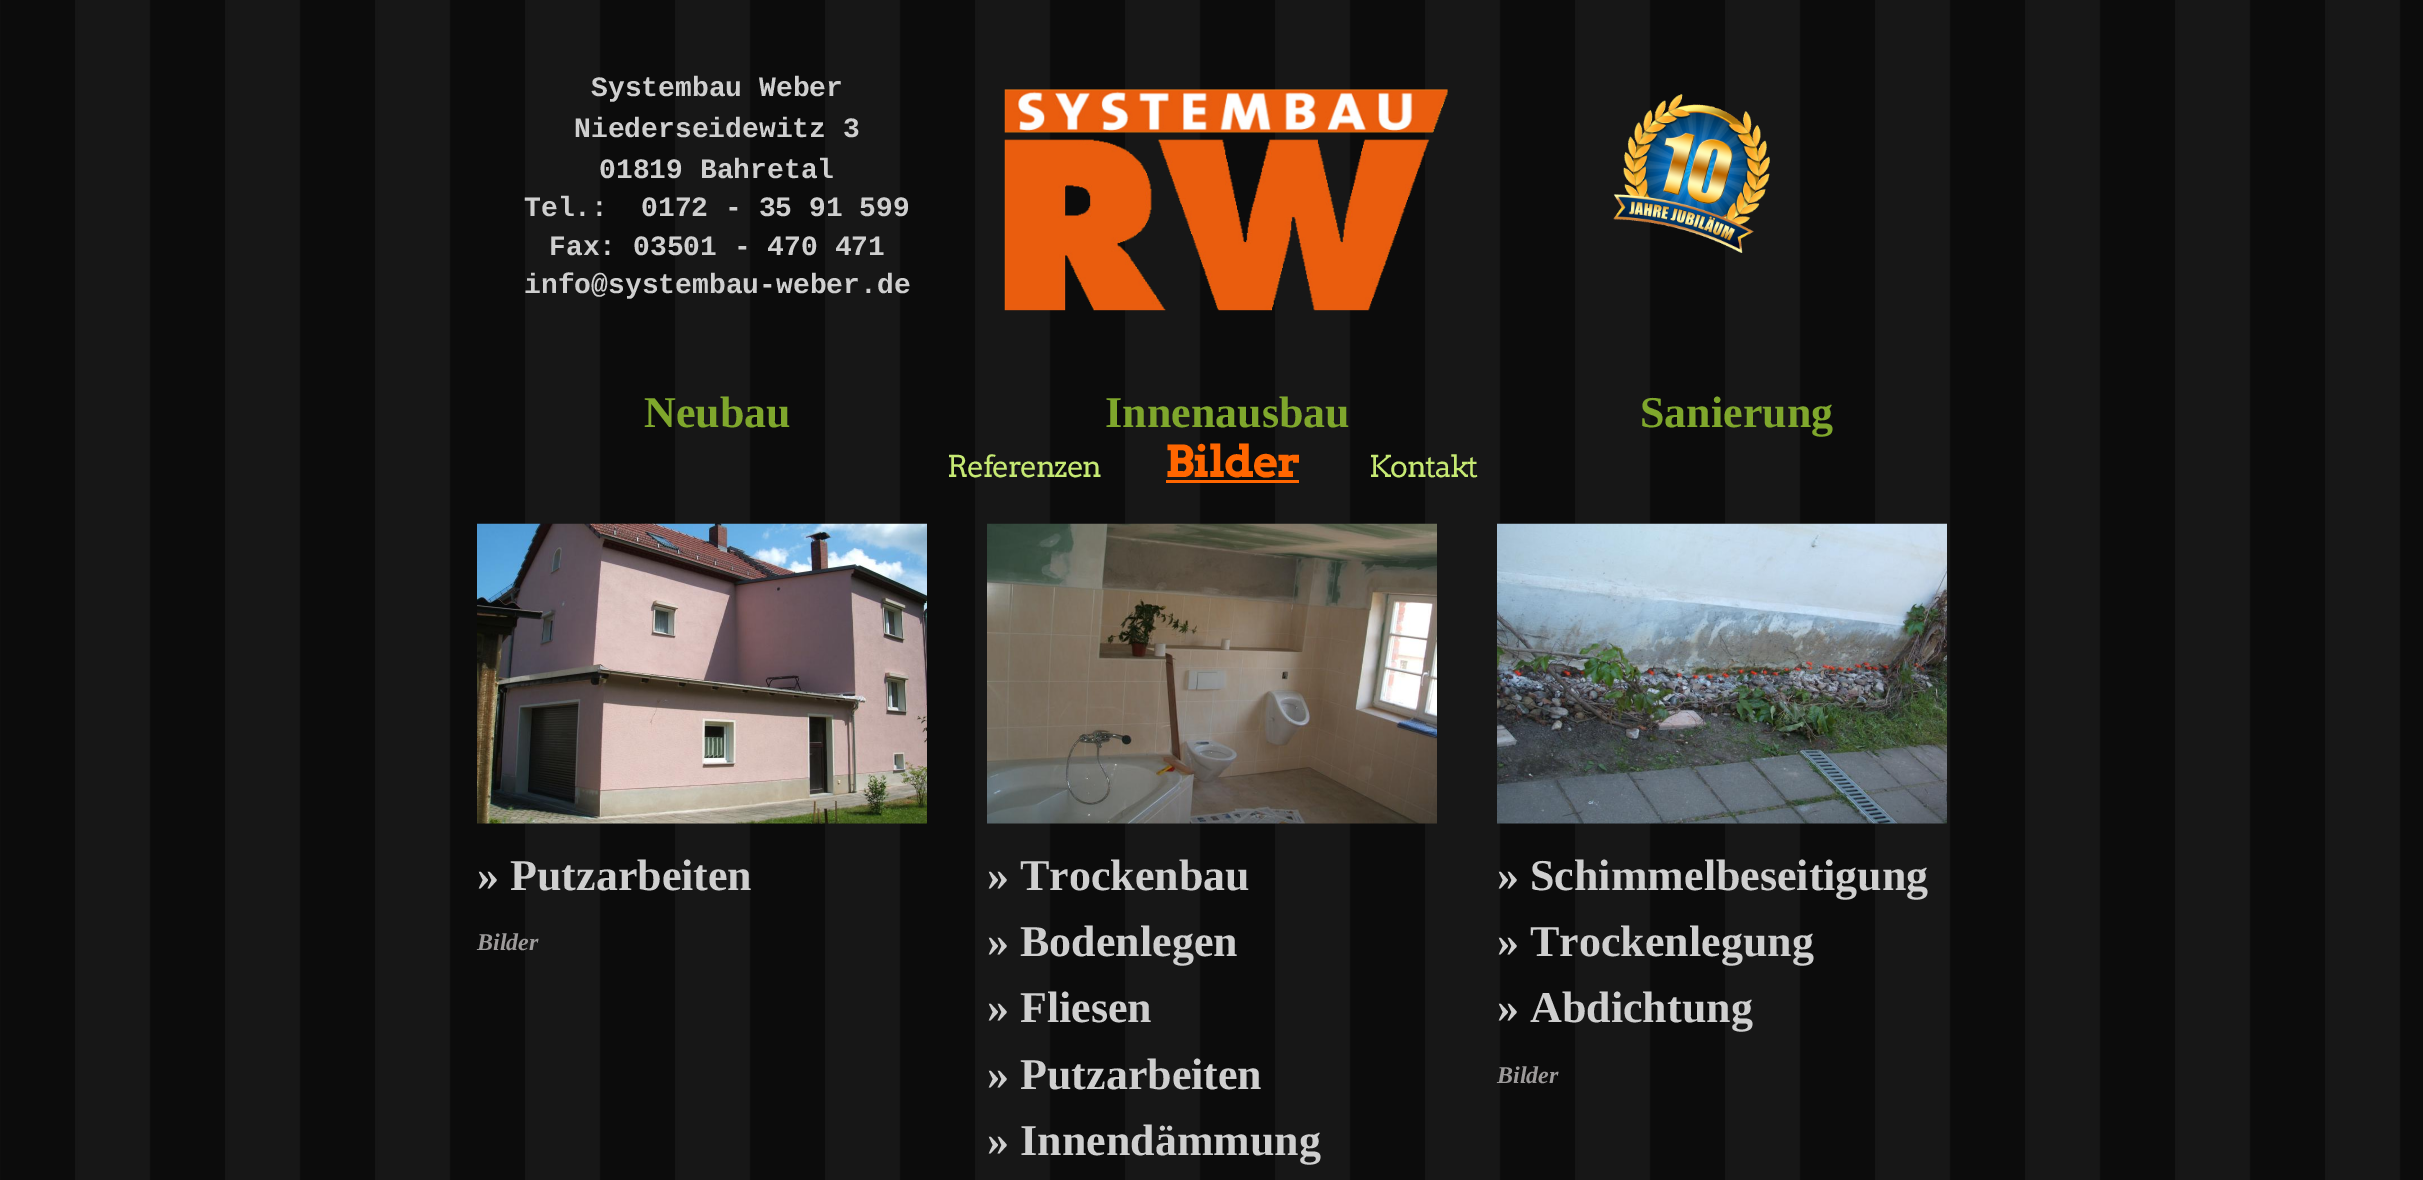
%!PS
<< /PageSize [2423 1180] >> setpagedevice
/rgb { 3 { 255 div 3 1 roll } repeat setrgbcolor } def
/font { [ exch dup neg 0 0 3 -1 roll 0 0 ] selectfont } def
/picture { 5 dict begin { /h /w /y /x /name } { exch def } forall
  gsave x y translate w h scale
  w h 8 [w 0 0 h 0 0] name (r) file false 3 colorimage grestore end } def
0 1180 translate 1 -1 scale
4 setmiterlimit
255 255 255 rgb
0 0 2423 1180 rectfill
(img/1.rgb) 0 0 2423 1180 picture
(img/2.rgb) 1004 89 444 222 picture
(img/3.rgb) 1613 94 157 159 picture
255 102 0 rgb
1166 480 133 3 rectfill
(img/4.rgb) 477 523 450 301 picture
(img/5.rgb) 987 523 450 301 picture
(img/6.rgb) 1497 523 450 301 picture
/LiberationMono-Bold 28 font
207 207 207 rgb
[
  [(Systembau Weber) 591 96]
  [(Niederseidewitz 3) 574 137]
  [(01819 Bahretal) 599 178]
  [(Tel.:) 524 216]
  [(0172 - 35 91 599) 641 216]
  [(Fax: 03501 - 470 471) 549 255]
  [(info@systembau-weber.de) 524 293]
] { aload pop moveto show } forall
/LiberationSerif-Bold 44 font
127 167 44 rgb
[
  [(Neubau) 644 427]
  [(Innenausbau) 1105 427]
  [(Sanierung) 1640 427]
] { aload pop moveto show } forall
/Arvo-Regular 30 font
198 233 115 rgb
947 477 moveto -1.5 0 (Referenzen) ashow
/Arvo-Bold 44 font
255 102 0 rgb
1165 477 moveto -1.5 0 (Bilder) ashow
/Arvo-Regular 30 font
198 233 115 rgb
1369 477 moveto -1.5 0 (Kontakt) ashow
/LiberationSerif-Bold 44 font
207 207 207 rgb
477 890 moveto (» Putzarbeiten) show
/LiberationSerif-BoldItalic 24 font
156 154 154 rgb
477 950 moveto (Bilder) show
/LiberationSerif-Bold 44 font
207 207 207 rgb
[
  [(» Trockenbau) 987 890]
  [(» Bodenlegen) 987 956]
  [(» Fliesen) 987 1022]
  [(» Putzarbeiten) 987 1089]
  [(» Innendämmung) 987 1155]
  [(» Schimmelbeseitigung) 1497 890]
  [(» Trockenlegung) 1497 956]
  [(» Abdichtung) 1497 1022]
] { aload pop moveto show } forall
/LiberationSerif-BoldItalic 24 font
156 154 154 rgb
1497 1083 moveto (Bilder) show
showpage
